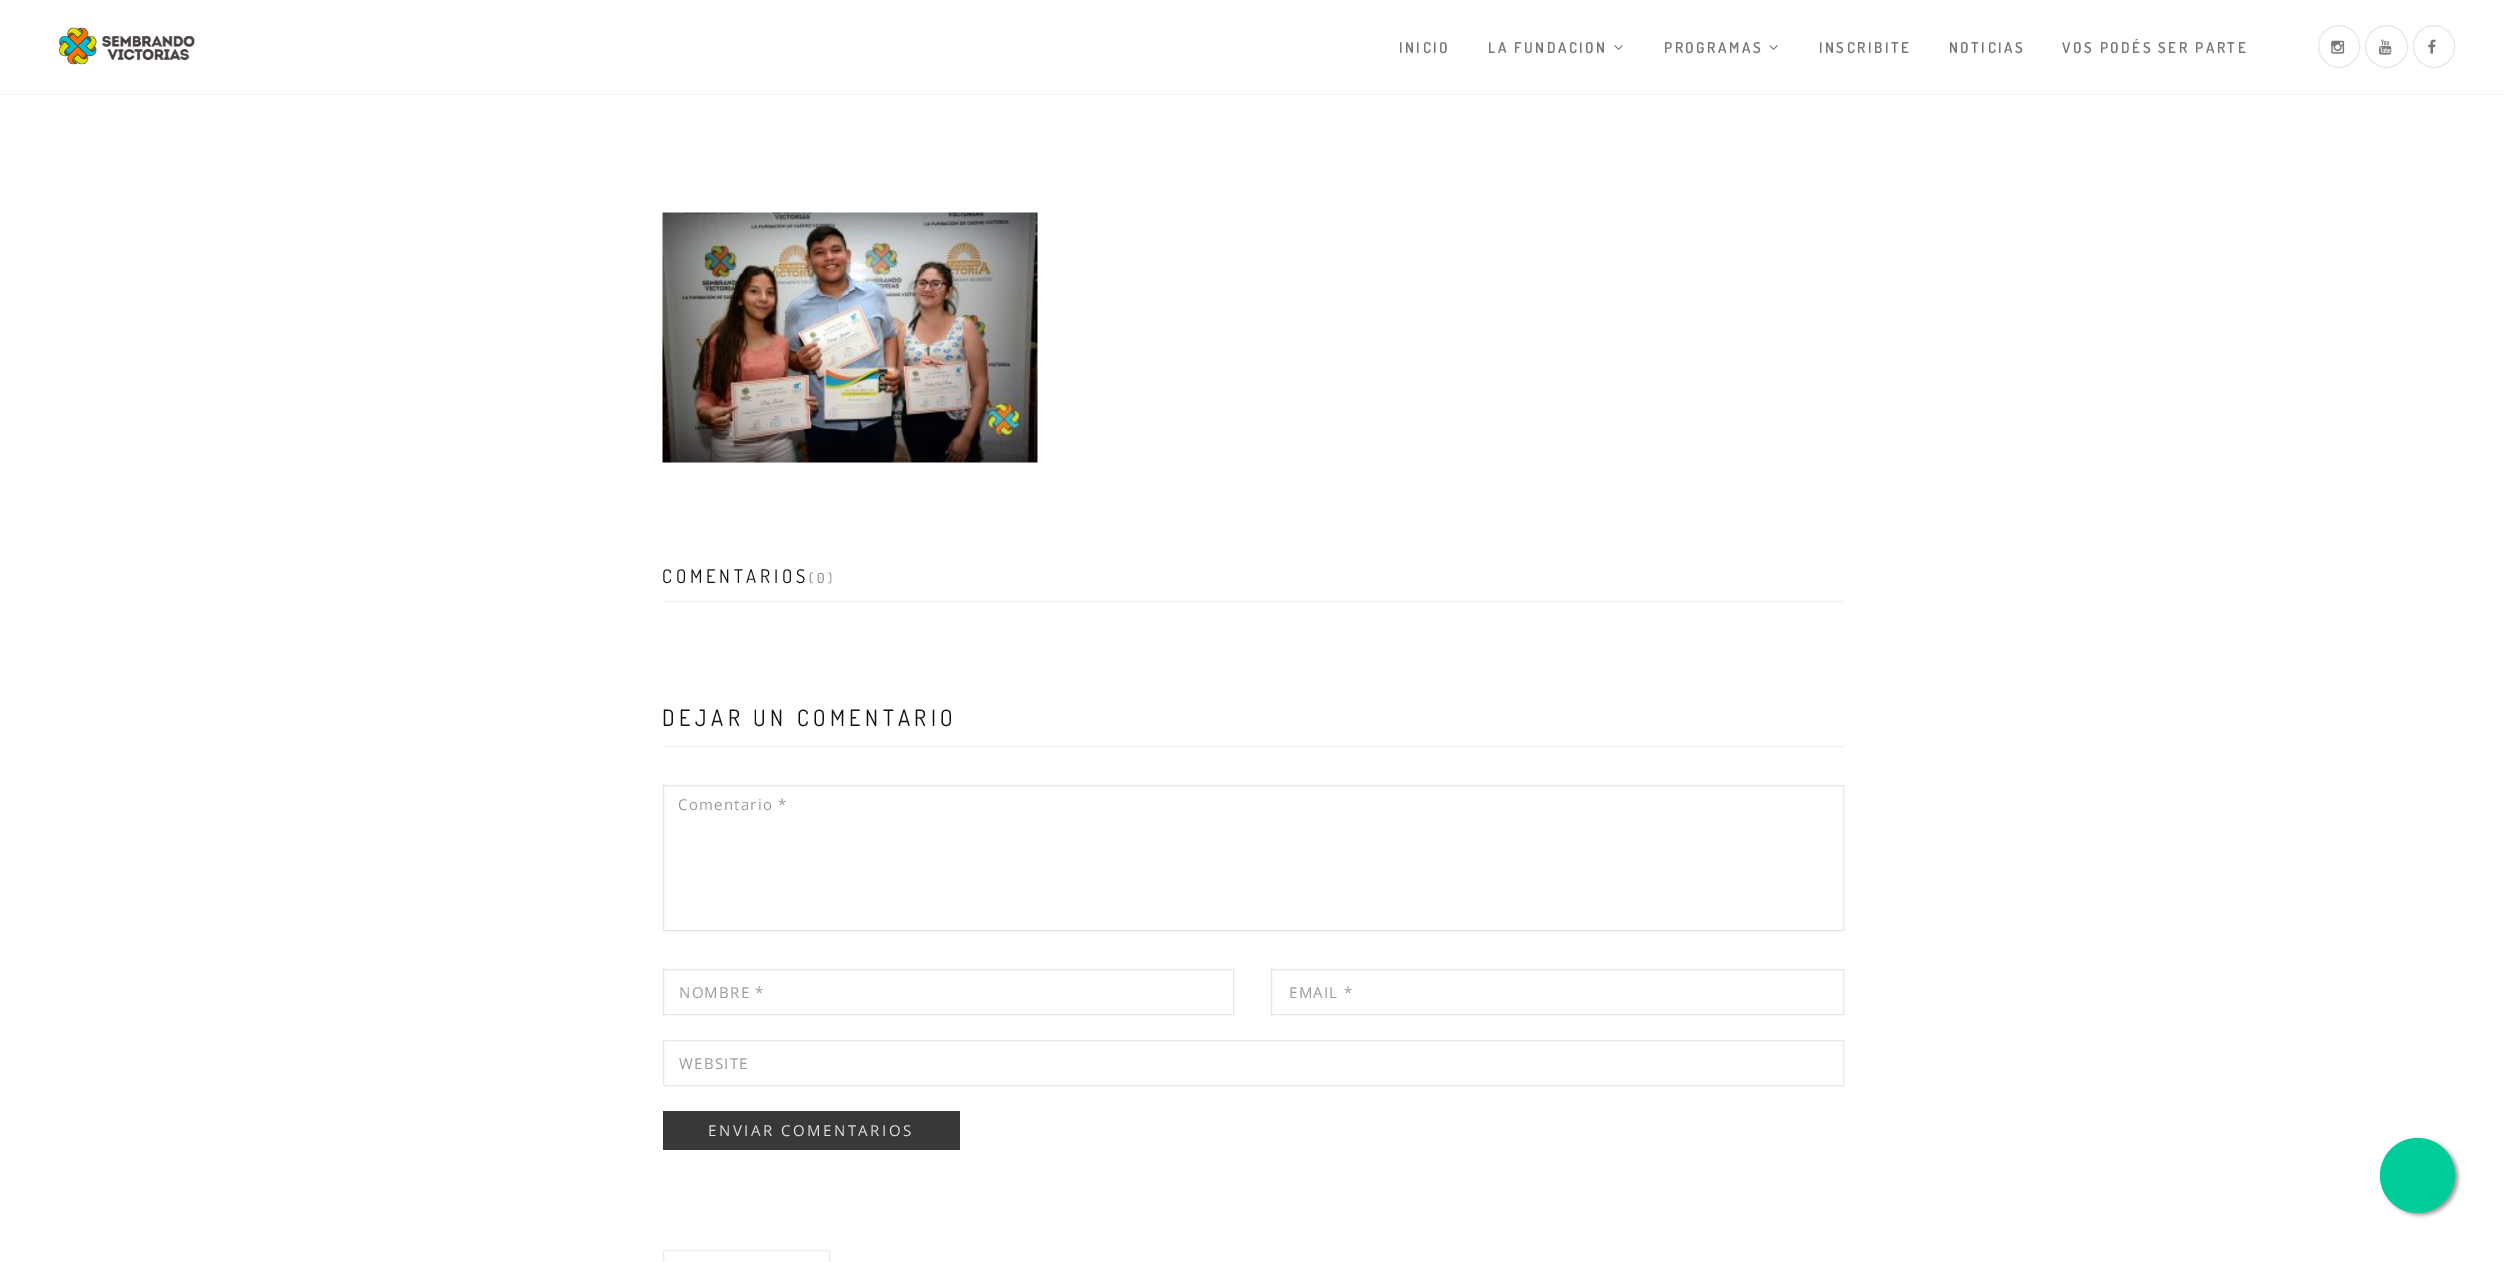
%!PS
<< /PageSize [2504 1262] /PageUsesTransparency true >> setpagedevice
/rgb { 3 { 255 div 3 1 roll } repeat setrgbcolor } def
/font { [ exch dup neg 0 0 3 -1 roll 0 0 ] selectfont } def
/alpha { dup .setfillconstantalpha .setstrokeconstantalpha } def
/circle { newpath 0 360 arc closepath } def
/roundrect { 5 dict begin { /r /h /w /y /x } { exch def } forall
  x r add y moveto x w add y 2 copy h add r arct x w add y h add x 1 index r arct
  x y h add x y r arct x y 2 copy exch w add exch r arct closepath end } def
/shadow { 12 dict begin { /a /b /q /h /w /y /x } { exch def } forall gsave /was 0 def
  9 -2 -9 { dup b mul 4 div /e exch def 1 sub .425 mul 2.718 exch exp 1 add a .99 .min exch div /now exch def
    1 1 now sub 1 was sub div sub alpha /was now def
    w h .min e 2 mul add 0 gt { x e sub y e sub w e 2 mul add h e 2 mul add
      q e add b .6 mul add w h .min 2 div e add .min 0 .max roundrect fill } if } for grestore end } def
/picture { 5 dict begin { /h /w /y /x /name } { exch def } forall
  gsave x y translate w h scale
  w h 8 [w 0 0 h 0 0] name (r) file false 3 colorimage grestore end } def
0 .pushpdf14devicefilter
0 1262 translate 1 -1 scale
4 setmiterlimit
255 255 255 rgb
0 0 2504 1262 rectfill
242 242 242 rgb
0 94 2504 1 rectfill
(img/1.rgb) 59 27 136 38 picture
(img/2.rgb) 1614 45 9 5 picture
(img/2.rgb) 1769 45 9 5 picture
230 230 230 rgb
2318.5 25.5 41 42 20.5 roundrect stroke
(img/3.rgb) 2331 40 14 14 picture
2386.5 46.5 21 circle stroke
(img/4.rgb) 2379 39 13 16 picture
2413.5 25.5 41 42 20.5 roundrect stroke
(img/5.rgb) 2428 39 8 15 picture
(img/6.rgb) 662 212 376 251 picture
238 238 238 rgb
663 601 1181 1 rectfill
663 746 1181 1 rectfill
230 230 230 rgb
663.5 785.5 1180 145 rectstroke
663.5 969.5 570 45 rectstroke
1271.5 969.5 572 45 rectstroke
663.5 1040.5 1180 45 rectstroke
56 56 56 rgb
663 1111 297 39 rectfill
234 234 234 rgb
663.5 1250.5 166 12 rectstroke
153 153 153 rgb
2383 1140 75 75 37.5 2 1 shadow
0 204 153 rgb
2417.5 1175.5 37.5 circle fill
/Dosis-SemiBold 15 font
119 119 119 rgb
1399 53 moveto 2.5 0 (INICIO) ashow
1488 53 moveto 2.5 0 (LA FUNDACION) ashow
1664 53 moveto 2.5 0 (PROGRAMAS) ashow
1819 53 moveto 2.5 0 (INSCRIBITE) ashow
1949 53 moveto 2.5 0 (NOTICIAS) ashow
2062 53 moveto 2.5 0 (VOS PODÉS SER PARTE) ashow
/Dosis-Regular 18.75 font
17 17 17 rgb
662 583 moveto 3.75 0 (COMENTARIOS) ashow
/Dosis-Regular 14 font
119 119 119 rgb
809 583 moveto 3.75 0 (\(0\)) ashow
/Dosis-Regular 22.5 font
17 17 17 rgb
662 726 moveto 4.5 0 (DEJAR UN COMENTARIO) ashow
/OpenSans-Regular 15 font
153 153 153 rgb
678 810 moveto 1.25 0 (Comentario *) ashow
679 998 moveto 1.25 0 (NOMBRE *) ashow
1289 998 moveto 1.25 0 (EMAIL *) ashow
679 1069 moveto 1.25 0 (WEBSITE) ashow
225 225 225 rgb
708 1136 moveto 2.5 0 (ENVIAR COMENTARIOS) ashow
.poppdf14devicefilter showpage
